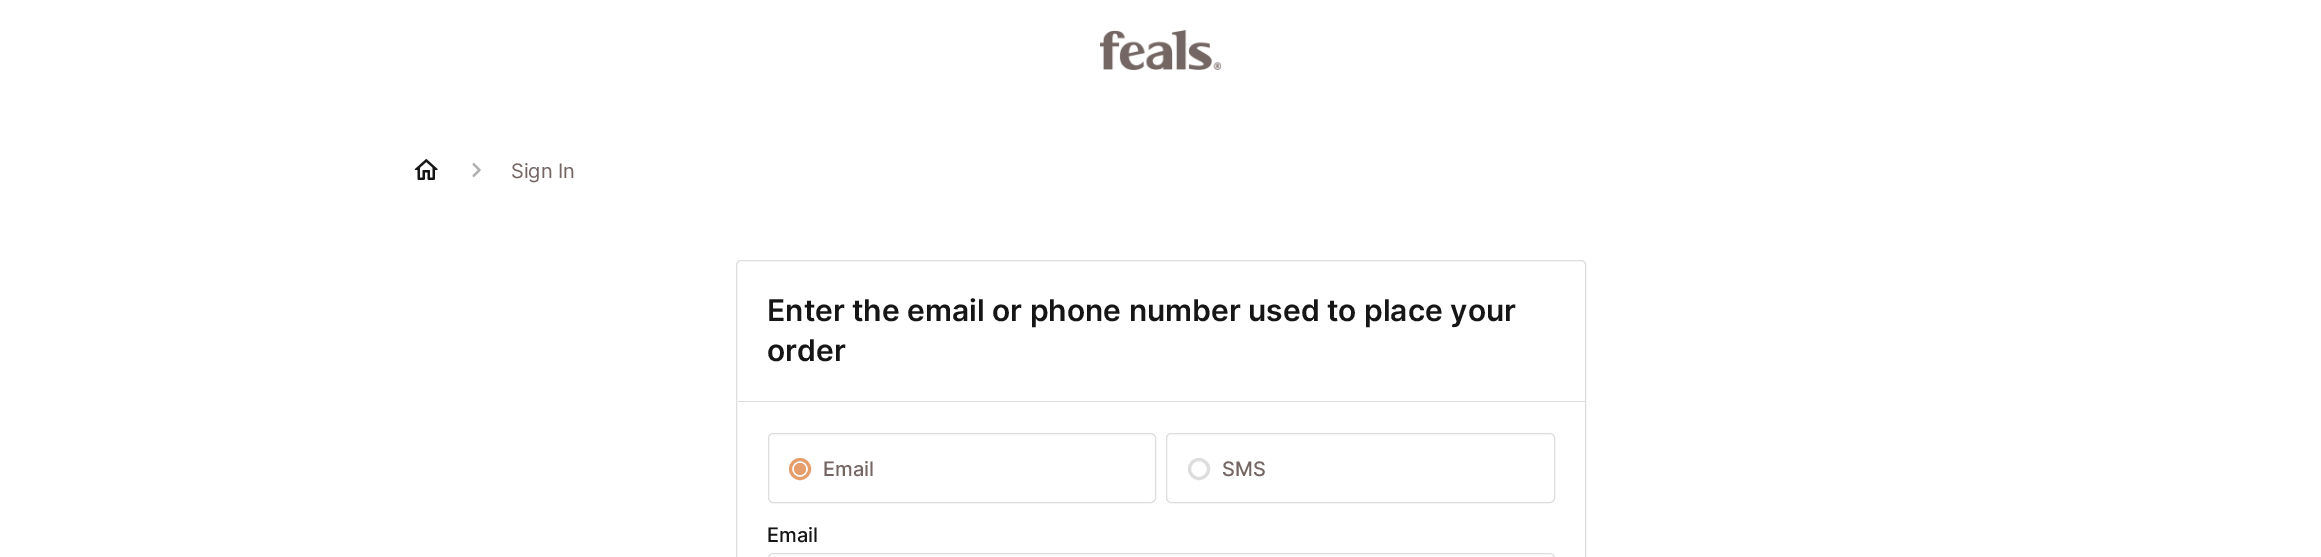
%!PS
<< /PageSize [2321 557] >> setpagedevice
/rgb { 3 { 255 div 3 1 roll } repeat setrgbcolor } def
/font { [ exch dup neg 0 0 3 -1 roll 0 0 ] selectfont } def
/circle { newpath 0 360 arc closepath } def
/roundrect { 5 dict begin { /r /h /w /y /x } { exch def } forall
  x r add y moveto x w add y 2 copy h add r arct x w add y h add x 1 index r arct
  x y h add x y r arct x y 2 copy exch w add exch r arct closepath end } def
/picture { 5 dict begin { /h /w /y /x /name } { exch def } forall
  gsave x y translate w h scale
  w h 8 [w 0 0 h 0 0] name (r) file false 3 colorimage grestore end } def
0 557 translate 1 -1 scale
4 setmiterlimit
255 255 255 rgb
0 0 2321 557 rectfill
(img/1.rgb) 1100 30 122 40 picture
(img/2.rgb) 414 159 24 21 picture
(img/3.rgb) 472 163 9 14 picture
221 221 221 rgb
736.5 260.5 849 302 4.5 roundrect stroke
738 401 847 1 rectfill
768.5 433.5 387 69 4.5 roundrect stroke
230 158 108 rgb
3 setlinewidth
800 469 9.5 circle stroke
800 469 6 circle fill
221 221 221 rgb
1 setlinewidth
1166.5 433.5 388 69 4.5 roundrect stroke
3 setlinewidth
1199 469 9.5 circle stroke
1 setlinewidth
768.5 553.5 786 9 4.5 roundrect stroke
/Inter-Regular 20 font
116 102 98 rgb
511 178 moveto (Sign In) show
/Inter-SemiBold 30 font
22 22 22 rgb
767 321 moveto (Enter the email or phone number used to place your) show
767 361 moveto (order) show
/Inter-Medium 20 font
116 102 98 rgb
823 476 moveto (Email) show
1222 476 moveto (SMS) show
22 22 22 rgb
767 542 moveto (Email) show
showpage
